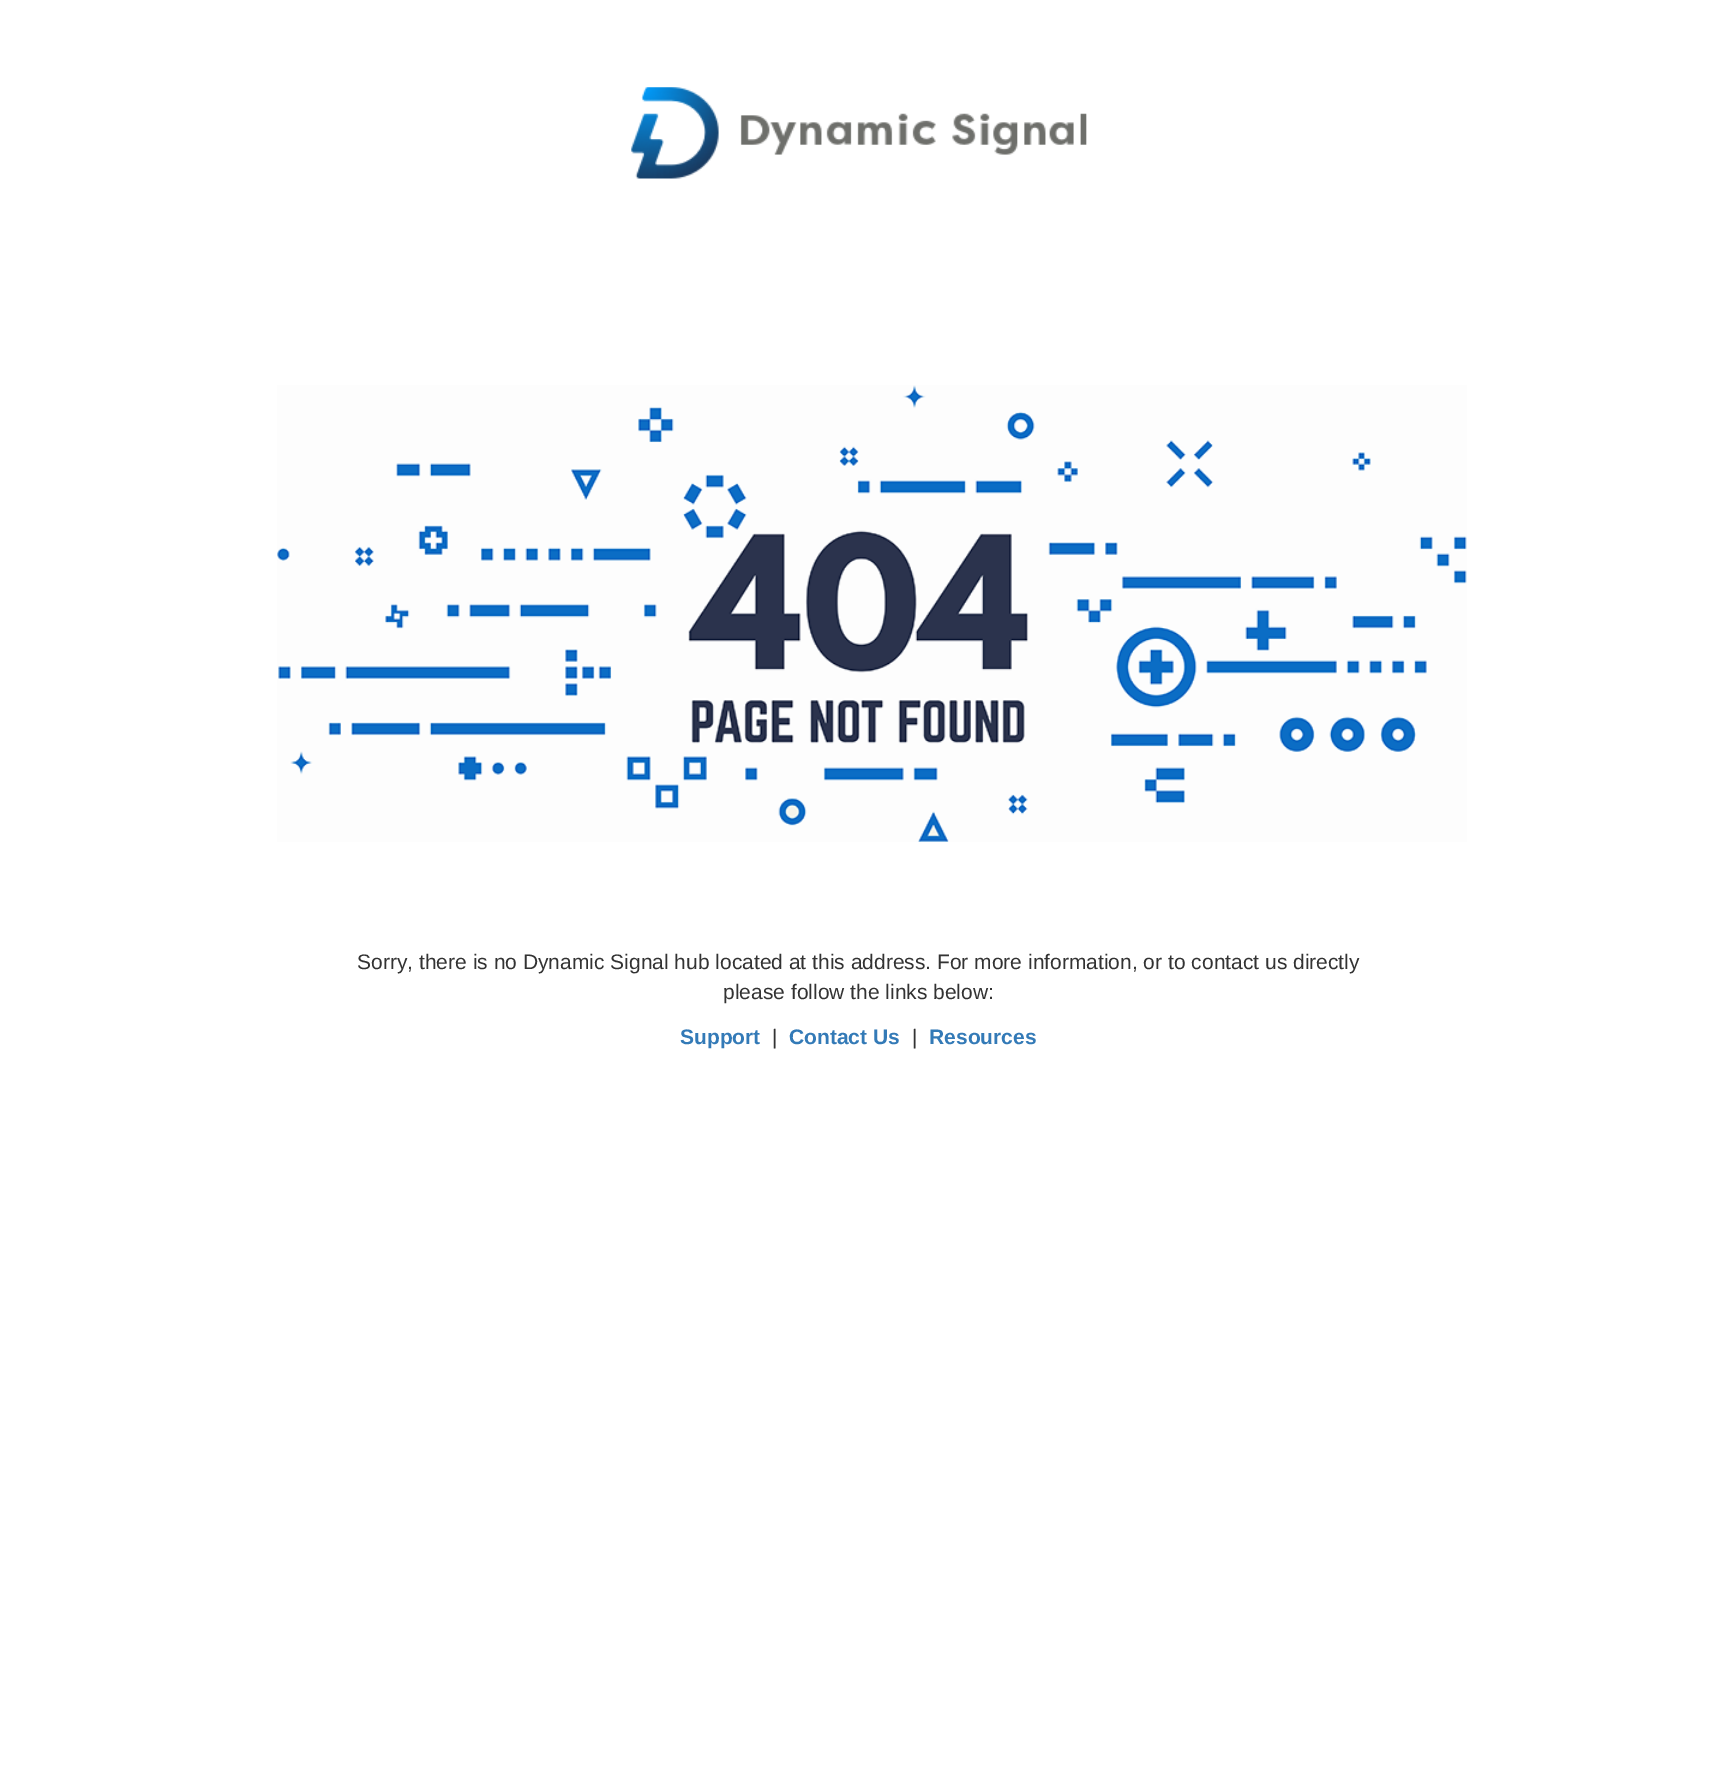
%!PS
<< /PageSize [1715 1778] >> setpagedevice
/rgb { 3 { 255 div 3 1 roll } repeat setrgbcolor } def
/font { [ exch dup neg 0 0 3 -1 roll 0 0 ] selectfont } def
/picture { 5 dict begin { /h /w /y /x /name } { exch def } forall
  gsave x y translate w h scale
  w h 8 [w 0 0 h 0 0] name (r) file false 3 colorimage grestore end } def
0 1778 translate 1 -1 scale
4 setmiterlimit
255 255 255 rgb
0 0 1715 1778 rectfill
(img/1.rgb) 631 87 456 92 picture
(img/2.rgb) 277 385 1190 457 picture
/LiberationSans-Regular 21 font
51 51 51 rgb
357 969 moveto (Sorry, there is no Dynamic Signal hub located at this address. For more information, or to contact us directly) show
723 999 moveto (please follow the links below:) show
/LiberationSans-Bold 21 font
51 122 183 rgb
680 1044 moveto (Support) show
/LiberationSans-Regular 21 font
51 51 51 rgb
772 1044 moveto (|) show
/LiberationSans-Bold 21 font
51 122 183 rgb
789 1044 moveto (Contact Us) show
/LiberationSans-Regular 21 font
51 51 51 rgb
912 1044 moveto (|) show
/LiberationSans-Bold 21 font
51 122 183 rgb
929 1044 moveto (Resources) show
showpage
